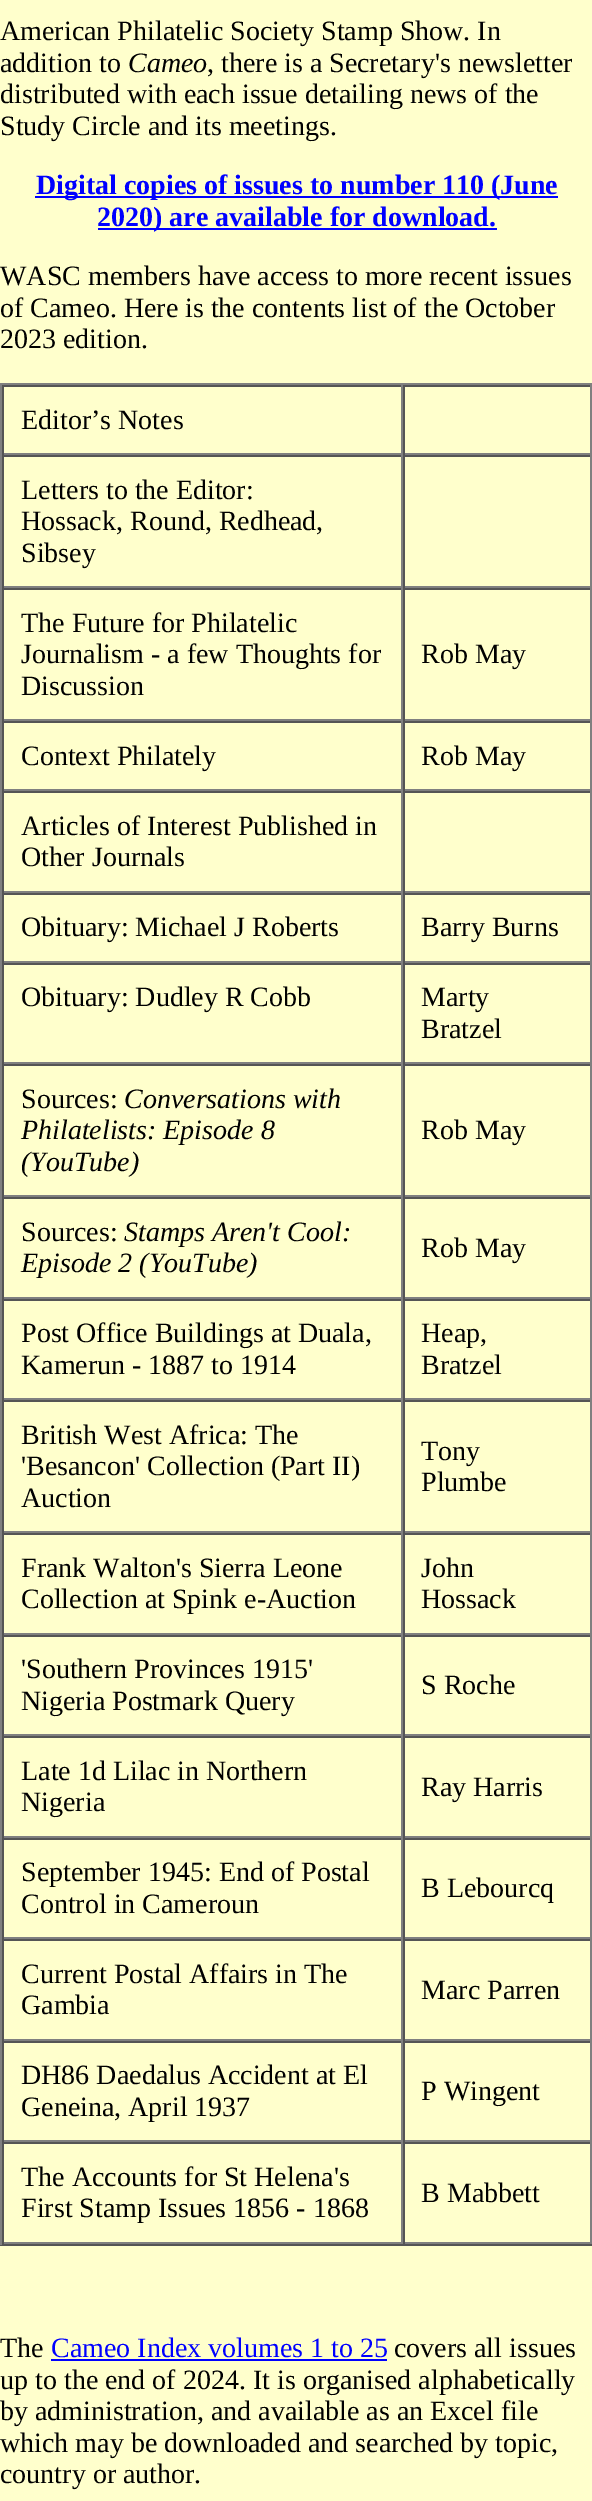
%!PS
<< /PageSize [592 2501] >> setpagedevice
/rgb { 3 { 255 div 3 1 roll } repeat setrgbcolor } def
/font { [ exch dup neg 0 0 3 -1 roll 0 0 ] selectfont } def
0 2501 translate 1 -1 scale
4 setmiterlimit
255 255 204 rgb
0 0 592 2501 rectfill
[
  [35 196 523 2 0 0 255]
  [98 228 399 2 0 0 255]
  [0 383 592 2 128 128 128]
  [0 2244 592 2 85 85 85]
  [0 383 2 1862 128 128 128]
  [2 385 590 2 85 85 85]
  [401 385 2 70 128 128 128]
  [2 453 401 2 128 128 128]
  [2 385 2 70 85 85 85]
  [590 385 2 70 128 128 128]
  [403 453 189 2 128 128 128]
  [403 385 2 70 85 85 85]
  [2 455 590 2 85 85 85]
  [401 455 2 133 128 128 128]
  [2 586 401 2 128 128 128]
  [2 455 2 133 85 85 85]
  [590 455 2 133 128 128 128]
  [403 586 189 2 128 128 128]
  [403 455 2 133 85 85 85]
  [2 588 590 2 85 85 85]
  [401 588 2 133 128 128 128]
  [2 719 401 2 128 128 128]
  [2 588 2 133 85 85 85]
  [590 588 2 133 128 128 128]
  [403 719 189 2 128 128 128]
  [403 588 2 133 85 85 85]
  [2 721 590 2 85 85 85]
  [401 721 2 70 128 128 128]
  [2 789 401 2 128 128 128]
  [2 721 2 70 85 85 85]
  [590 721 2 70 128 128 128]
  [403 789 189 2 128 128 128]
  [403 721 2 70 85 85 85]
  [2 791 590 2 85 85 85]
  [401 791 2 102 128 128 128]
  [2 891 401 2 128 128 128]
  [2 791 2 102 85 85 85]
  [590 791 2 102 128 128 128]
  [403 891 189 2 128 128 128]
  [403 791 2 102 85 85 85]
  [2 893 590 2 85 85 85]
  [401 893 2 70 128 128 128]
  [2 961 401 2 128 128 128]
  [2 893 2 70 85 85 85]
  [590 893 2 70 128 128 128]
  [403 961 189 2 128 128 128]
  [403 893 2 70 85 85 85]
  [2 963 590 2 85 85 85]
  [401 963 2 101 128 128 128]
  [2 1062 401 2 128 128 128]
  [2 963 2 101 85 85 85]
  [590 963 2 101 128 128 128]
  [403 1062 189 2 128 128 128]
  [403 963 2 101 85 85 85]
  [2 1064 590 2 85 85 85]
  [401 1064 2 133 128 128 128]
  [2 1195 401 2 128 128 128]
  [2 1064 2 133 85 85 85]
  [590 1064 2 133 128 128 128]
  [403 1195 189 2 128 128 128]
  [403 1064 2 133 85 85 85]
  [2 1197 590 2 85 85 85]
  [401 1197 2 102 128 128 128]
  [2 1297 401 2 128 128 128]
  [2 1197 2 102 85 85 85]
  [590 1197 2 102 128 128 128]
  [403 1297 189 2 128 128 128]
  [403 1197 2 102 85 85 85]
  [2 1299 590 2 85 85 85]
  [401 1299 2 101 128 128 128]
  [2 1398 401 2 128 128 128]
  [2 1299 2 101 85 85 85]
  [590 1299 2 101 128 128 128]
  [403 1398 189 2 128 128 128]
  [403 1299 2 101 85 85 85]
  [2 1400 590 2 85 85 85]
  [401 1400 2 133 128 128 128]
  [2 1531 401 2 128 128 128]
  [2 1400 2 133 85 85 85]
  [590 1400 2 133 128 128 128]
  [403 1531 189 2 128 128 128]
  [403 1400 2 133 85 85 85]
  [2 1533 590 2 85 85 85]
  [401 1533 2 102 128 128 128]
  [2 1633 401 2 128 128 128]
  [2 1533 2 102 85 85 85]
  [590 1533 2 102 128 128 128]
  [403 1633 189 2 128 128 128]
  [403 1533 2 102 85 85 85]
  [2 1635 590 2 85 85 85]
  [401 1635 2 101 128 128 128]
  [2 1734 401 2 128 128 128]
  [2 1635 2 101 85 85 85]
  [590 1635 2 101 128 128 128]
  [403 1734 189 2 128 128 128]
  [403 1635 2 101 85 85 85]
  [2 1736 590 2 85 85 85]
  [401 1736 2 102 128 128 128]
  [2 1836 401 2 128 128 128]
  [2 1736 2 102 85 85 85]
  [590 1736 2 102 128 128 128]
  [403 1836 189 2 128 128 128]
  [403 1736 2 102 85 85 85]
  [2 1838 590 2 85 85 85]
  [401 1838 2 101 128 128 128]
  [2 1937 401 2 128 128 128]
  [2 1838 2 101 85 85 85]
  [590 1838 2 101 128 128 128]
  [403 1937 189 2 128 128 128]
  [403 1838 2 101 85 85 85]
  [2 1939 590 2 85 85 85]
  [401 1939 2 102 128 128 128]
  [2 2039 401 2 128 128 128]
  [2 1939 2 102 85 85 85]
  [590 1939 2 102 128 128 128]
  [403 2039 189 2 128 128 128]
  [403 1939 2 102 85 85 85]
  [2 2041 590 2 85 85 85]
  [401 2041 2 101 128 128 128]
  [2 2140 401 2 128 128 128]
  [2 2041 2 101 85 85 85]
  [590 2041 2 101 128 128 128]
  [403 2140 189 2 128 128 128]
  [403 2041 2 101 85 85 85]
  [2 2142 590 2 85 85 85]
  [401 2142 2 102 128 128 128]
  [2 2242 401 2 128 128 128]
  [2 2142 2 102 85 85 85]
  [590 2142 2 102 128 128 128]
  [403 2242 189 2 128 128 128]
  [403 2142 2 102 85 85 85]
  [51 2359 336 2 0 0 255]
] { aload pop rgb rectfill } forall
/LiberationSerif-Regular 28 font
0 0 0 rgb
0 40 moveto (American Philatelic Society Stamp Show. In) show
0 72 moveto (addition to) show
/LiberationSerif-Italic 28 font
128 72 moveto (Cameo) show
/LiberationSerif-Regular 28 font
[
  [(, there is a Secretary's newsletter) 207 72]
  [(distributed with each issue detailing news of the) 0 103]
  [(Study Circle and its meetings.) 0 135]
] { aload pop moveto show } forall
/LiberationSerif-Bold 28 font
0 0 255 rgb
36 194 moveto (Digital copies of issues to number 110 \(June) show
97 226 moveto (2020\) are available for download.) show
/LiberationSerif-Regular 28 font
0 0 0 rgb
[
  [(WASC members have access to more recent issues) 0 285]
  [(of Cameo. Here is the contents list of the October) 0 317]
  [(2023 edition.) 0 348]
  [(Editor’s Notes) 21 429]
  [(Letters to the Editor:) 21 499]
  [(Hossack, Round, Redhead,) 21 530]
  [(Sibsey) 21 562]
  [(The Future for Philatelic) 21 632]
  [(Journalism - a few Thoughts for) 21 663]
  [(Discussion) 21 695]
  [(Rob May) 421 663]
  [(Context Philately) 21 765]
  [(Rob May) 421 765]
  [(Articles of Interest Published in) 21 835]
  [(Other Journals) 21 866]
  [(Obituary: Michael J Roberts) 21 936]
  [(Barry Burns) 421 936]
  [(Obituary: Dudley R Cobb) 21 1006]
  [(Marty) 421 1006]
  [(Bratzel) 421 1038]
  [(Sources:) 21 1108]
] { aload pop moveto show } forall
/LiberationSerif-Italic 28 font
[
  [(Conversations with) 124 1108]
  [(Philatelists: Episode 8) 21 1139]
  [(\(YouTube\)) 21 1171]
] { aload pop moveto show } forall
/LiberationSerif-Regular 28 font
421 1139 moveto (Rob May) show
21 1241 moveto (Sources:) show
/LiberationSerif-Italic 28 font
124 1241 moveto (Stamps Aren't Cool:) show
21 1272 moveto (Episode 2 \(YouTube\)) show
/LiberationSerif-Regular 28 font
[
  [(Rob May) 421 1257]
  [(Post Office Buildings at Duala,) 21 1342]
  [(Kamerun - 1887 to 1914) 21 1374]
  [(Heap,) 421 1342]
  [(Bratzel) 421 1374]
  [(British West Africa: The) 21 1444]
  [('Besancon' Collection \(Part II\)) 21 1475]
  [(Auction) 21 1507]
  [(Tony) 421 1460]
  [(Plumbe) 421 1491]
  [(Frank Walton's Sierra Leone) 21 1577]
  [(Collection at Spink e-Auction) 21 1608]
  [(John) 421 1577]
  [(Hossack) 421 1608]
  [('Southern Provinces 1915') 21 1678]
  [(Nigeria Postmark Query) 21 1710]
  [(S Roche) 421 1694]
  [(Late 1d Lilac in Northern) 21 1780]
  [(Nigeria) 21 1811]
  [(Ray Harris) 421 1796]
  [(September 1945: End of Postal) 21 1881]
  [(Control in Cameroun) 21 1913]
  [(B Lebourcq) 421 1897]
  [(Current Postal Affairs in The) 21 1983]
  [(Gambia) 21 2014]
  [(Marc Parren) 421 1999]
  [(DH86 Daedalus Accident at El) 21 2084]
  [(Geneina, April 1937) 21 2116]
  [(P Wingent) 421 2100]
  [(The Accounts for St Helena's) 21 2186]
  [(First Stamp Issues 1856 - 1868) 21 2217]
  [(B Mabbett) 421 2202]
  [(The) 0 2357]
] { aload pop moveto show } forall
0 0 255 rgb
51 2357 moveto (Cameo Index volumes 1 to 25) show
0 0 0 rgb
[
  [(covers all issues) 394 2357]
  [(up to the end of 2024. It is organised alphabetically) 0 2389]
  [(by administration, and available as an Excel file) 0 2420]
  [(which may be downloaded and searched by topic,) 0 2452]
  [(country or author.) 0 2483]
] { aload pop moveto show } forall
showpage
